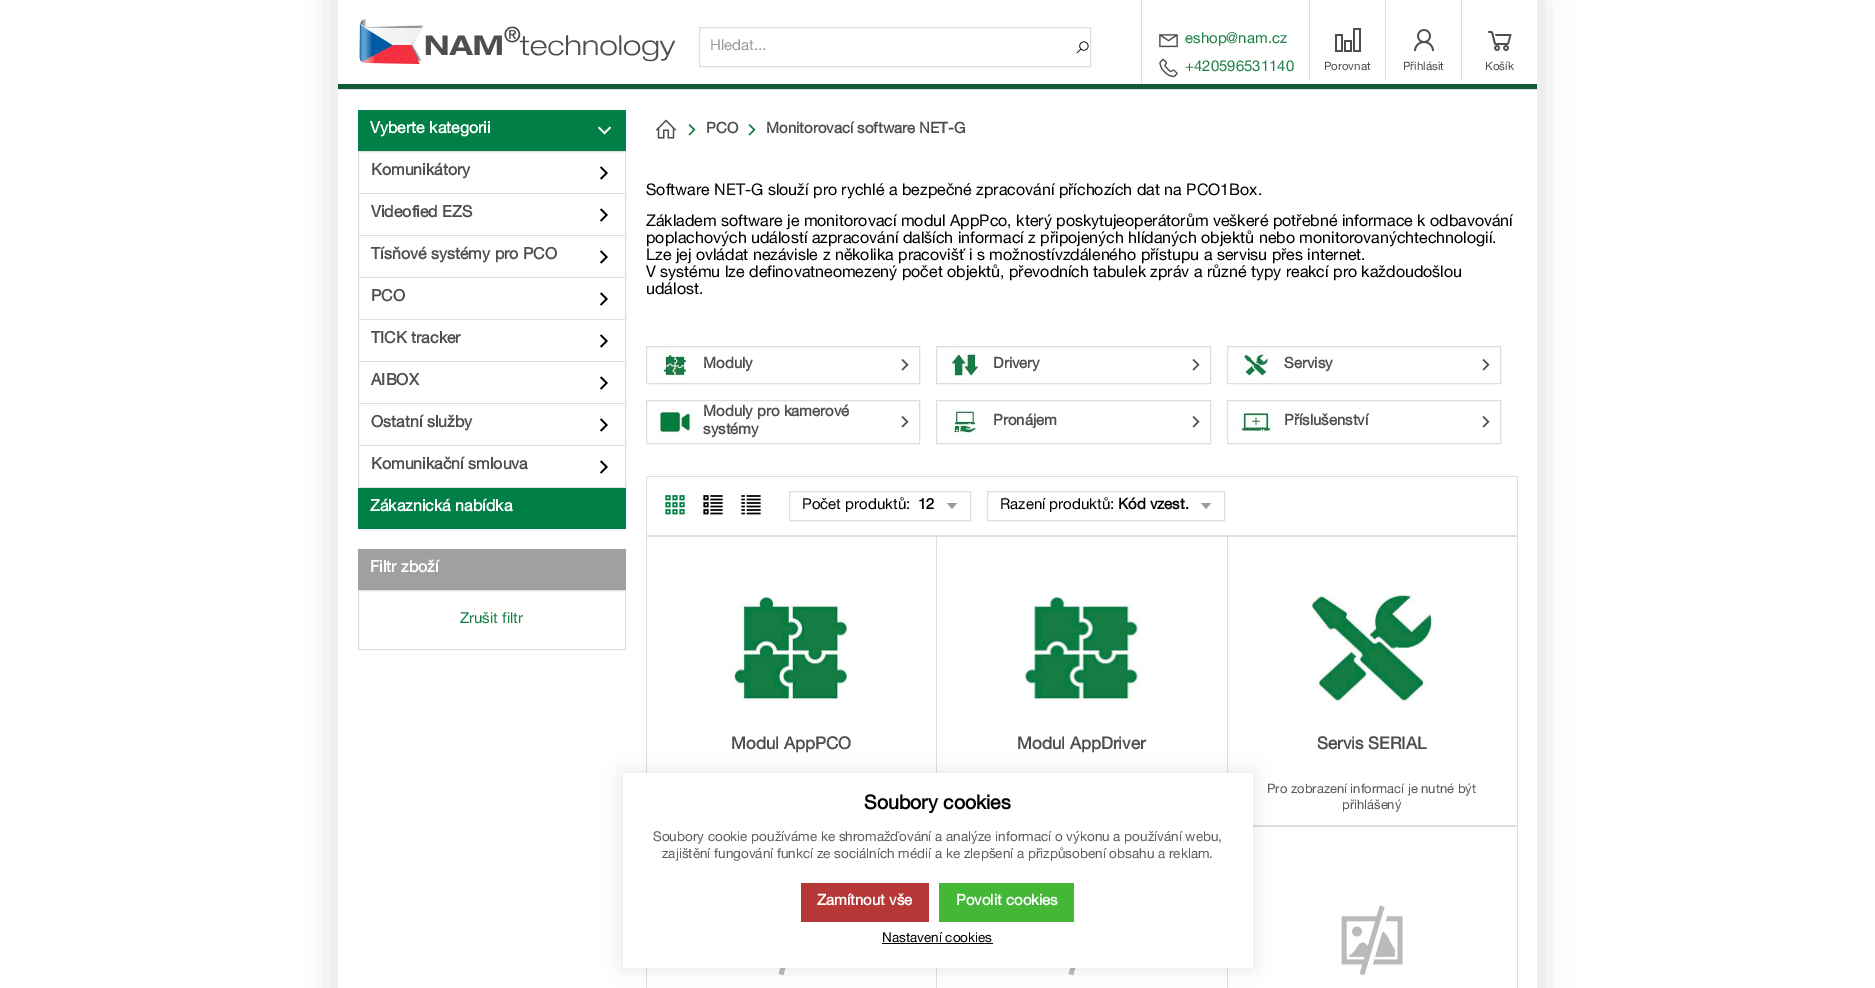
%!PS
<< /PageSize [1875 988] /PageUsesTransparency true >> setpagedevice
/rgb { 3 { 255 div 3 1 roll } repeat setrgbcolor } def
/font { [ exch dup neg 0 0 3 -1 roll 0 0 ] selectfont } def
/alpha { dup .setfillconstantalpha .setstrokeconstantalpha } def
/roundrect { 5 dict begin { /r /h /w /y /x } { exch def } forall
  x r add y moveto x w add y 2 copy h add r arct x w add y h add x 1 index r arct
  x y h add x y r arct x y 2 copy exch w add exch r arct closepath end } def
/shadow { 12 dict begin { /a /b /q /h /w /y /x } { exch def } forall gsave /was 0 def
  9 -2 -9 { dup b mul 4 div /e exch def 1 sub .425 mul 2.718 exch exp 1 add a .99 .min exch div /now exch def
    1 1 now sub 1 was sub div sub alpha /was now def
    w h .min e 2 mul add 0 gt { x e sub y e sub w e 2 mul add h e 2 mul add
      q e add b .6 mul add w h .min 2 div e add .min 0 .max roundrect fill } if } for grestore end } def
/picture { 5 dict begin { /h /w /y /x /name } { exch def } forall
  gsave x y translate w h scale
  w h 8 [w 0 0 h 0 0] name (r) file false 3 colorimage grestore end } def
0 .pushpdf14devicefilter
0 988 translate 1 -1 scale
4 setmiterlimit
255 255 255 rgb
0 0 1875 988 rectfill
gsave
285 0 moveto 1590 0 lineto 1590 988 lineto 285 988 lineto closepath 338 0 moveto 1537 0 lineto 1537 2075 lineto 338 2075 lineto closepath eoclip newpath
221 221 221 rgb
334 -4 1207 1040 0 16 1 shadow
grestore
(img/1.rgb) 359 19 317 45 picture
221 221 221 rgb
699.5 27.5 391 39 rectstroke
(img/2.rgb) 1076 41 13 13 picture
1141 0 1 84 rectfill
(img/3.rgb) 1159 34 19 14 picture
(img/4.rgb) 1159 58 19 20 picture
1309 0 1 80 rectfill
(img/5.rgb) 1335 28 26 24 picture
1385 0 1 80 rectfill
(img/6.rgb) 1414 29 20 22 picture
1461 0 1 80 rectfill
(img/7.rgb) 1488 31 24 20 picture
[
  [338 84 1199 5 16 91 51]
  [338 89 1199 1 221 221 221]
  [358 110 268 41 0 127 70]
] { aload pop rgb rectfill } forall
(img/8.rgb) 597 126 15 9 picture
221 221 221 rgb
358.5 151.5 267 336 rectstroke
359 193 266 1 rectfill
(img/9.rgb) 600 166 8 14 picture
359 235 266 1 rectfill
(img/9.rgb) 600 208 8 14 picture
359 277 266 1 rectfill
(img/9.rgb) 600 250 8 14 picture
359 319 266 1 rectfill
(img/9.rgb) 600 292 8 14 picture
359 361 266 1 rectfill
(img/9.rgb) 600 334 8 14 picture
359 403 266 1 rectfill
(img/9.rgb) 600 376 8 14 picture
359 445 266 1 rectfill
(img/9.rgb) 600 418 8 14 picture
(img/9.rgb) 600 460 8 14 picture
0 127 70 rgb
358 488 268 41 rectfill
160 160 160 rgb
358 549 268 41 rectfill
221 221 221 rgb
358.5 590.5 267 59 rectstroke
(img/10.rgb) 655 119 22 20 picture
(img/11.rgb) 688 124 8 12 picture
(img/11.rgb) 748 124 8 12 picture
646.5 346.5 273 37 rectstroke
(img/12.rgb) 655 350 32 30 picture
(img/13.rgb) 901 359 8 12 picture
936.5 346.5 274 37 rectstroke
(img/14.rgb) 945 350 40 30 picture
(img/13.rgb) 1192 359 8 12 picture
1227.5 346.5 273 37 rectstroke
(img/15.rgb) 1236 350 33 30 picture
(img/13.rgb) 1482 359 8 12 picture
646.5 400.5 273 43 rectstroke
(img/16.rgb) 655 407 40 30 picture
(img/13.rgb) 901 416 8 12 picture
936.5 400.5 274 43 rectstroke
(img/17.rgb) 945 407 32 30 picture
(img/13.rgb) 1192 416 8 12 picture
1227.5 400.5 273 43 rectstroke
(img/18.rgb) 1236 407 39 30 picture
(img/13.rgb) 1482 416 8 12 picture
[
  [646 476 872 1 221 221 221]
  [1517 476 1 59 221 221 221]
  [646 476 1 59 221 221 221]
] { aload pop rgb rectfill } forall
(img/19.rgb) 665 495 20 20 picture
(img/20.rgb) 703 495 20 20 picture
(img/21.rgb) 741 495 20 20 picture
154 154 154 rgb
952 509 moveto 947 503 lineto 957 503 lineto closepath fill
221 221 221 rgb
789.5 491.5 181 29 rectstroke
154 154 154 rgb
1206 509 moveto 1201 503 lineto 1211 503 lineto closepath fill
221 221 221 rgb
987.5 491.5 237 29 rectstroke
[
  [646 535 871 1 221 221 221]
  [646 536 291 1 221 221 221]
  [936 536 1 237 221 221 221]
  [646 536 1 237 221 221 221]
] { aload pop rgb rectfill } forall
(img/22.rgb) 729 596 120 104 picture
936 536 292 1 rectfill
1227 536 1 237 rectfill
(img/23.rgb) 1023 596 117 104 picture
[
  [1253 825 264 1 221 221 221]
  [1227 536 291 1 221 221 221]
  [1517 536 1 289 221 221 221]
] { aload pop rgb rectfill } forall
(img/24.rgb) 1310 594 124 108 picture
936 968 1 20 rectfill
646 968 1 20 rectfill
(img/25.rgb) 778 968 8 8 picture
(img/25.rgb) 1068 968 8 8 picture
[
  [1227 968 1 20 221 221 221]
  [1253 826 265 1 221 221 221]
  [1517 826 1 162 221 221 221]
] { aload pop rgb rectfill } forall
(img/26.rgb) 1341 905 62 71 picture
0 0 0 rgb
623 773 630 195 0 10 0.1 shadow
[
  [623 773 630 195 255 255 255]
  [801 883 128 39 183 54 54]
  [939 883 135 39 68 183 54]
  [882 943 111 1 0 0 0]
] { aload pop rgb rectfill } forall
/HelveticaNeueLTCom-Regular 15 font
154 154 154 rgb
710 50 moveto (Hledat...) show
27 127 70 rgb
1185 43 moveto (eshop@nam.cz) show
1185 71 moveto (+420596531140) show
/HelveticaNeueLTCom-Regular 11.5 font
78 78 80 rgb
[
  [(Porovnat) 1324 70]
  [(Přihlásit) 1403 70]
  [(Košík) 1485 70]
] { aload pop moveto show } forall
/HelveticaNeueLTCom-Bold 16 font
255 255 255 rgb
370 133 moveto (Vyberte kategorii) show
78 78 80 rgb
[
  [(Komunikátory) 371 175]
  [(Videofied EZS) 371 217]
  [(Tísňové systémy pro PCO) 371 259]
  [(PCO) 371 301]
  [(TICK tracker) 371 343]
  [(AIBOX) 371 385]
  [(Ostatní služby) 371 427]
  [(Komunikační smlouva) 371 469]
] { aload pop moveto show } forall
255 255 255 rgb
370 511 moveto (Zákaznická nabídka) show
370 572 moveto (Filtr zboží) show
/HelveticaNeueLTCom-Regular 15 font
19 126 66 rgb
460 623 moveto (Zrušit filtr) show
/HelveticaNeueLTCom-Bold 15 font
78 78 80 rgb
706 133 moveto (PCO) show
766 133 moveto (Monitorovací software NET-G) show
/HelveticaNeueLTCom-Regular 16 font
0 0 0 rgb
[
  [(Software NET-G slouží pro rychlé a bezpečné zpracování příchozích dat na PCO1Box.) 646 195]
  [(Základem software je monitorovací modul AppPco, který poskytujeoperátorům veškeré potřebné informace k odbavování) 646 226]
  [(poplachových událostí azpracování dalších informací z připojených hlídaných objektů nebo monitorovanýchtechnologií.) 646 243]
  [(Lze jej ovládat nezávisle z několika pracovišť i s možnostívzdáleného přístupu a servisu přes internet.) 646 260]
  [(V systému lze definovatneomezený počet objektů, převodních tabulek zpráv a různé typy reakcí pro každoudošlou) 646 277]
  [(událost.) 646 294]
] { aload pop moveto show } forall
/HelveticaNeueLTCom-Bold 15 font
78 78 80 rgb
[
  [(Moduly) 703 368]
  [(Drivery) 993 368]
  [(Servisy) 1284 368]
  [(Moduly pro kamerové) 703 416]
  [(systémy) 703 434]
  [(Pronájem) 993 425]
  [(Příslušenství) 1284 425]
] { aload pop moveto show } forall
/HelveticaNeueLTCom-Regular 15 font
0 0 0 rgb
802 509 moveto (Počet produktů:) show
/HelveticaNeueLTCom-Bold 15 font
918 509 moveto (12) show
gsave
1000 497 189 18 rectclip
/HelveticaNeueLTCom-Regular 15 font
1000 509 moveto (Řazení produktů:) show
grestore
1118 509 moveto (Kód vzest.) show
/HelveticaNeueLTCom-Bold 17 font
78 78 80 rgb
[
  [(Modul AppPCO) 731 749]
  [(Modul AppDriver) 1017 749]
  [(Servis SERIAL) 1317 749]
] { aload pop moveto show } forall
/HelveticaNeueLTCom-Regular 13 font
88 88 88 rgb
1267 793 moveto (Pro zobrazení informací je nutné být) show
1342 809 moveto (přihlášený) show
/HelveticaNeueLTCom-Bold 19.5 font
0 0 0 rgb
864 809 moveto (Soubory cookies) show
/HelveticaNeueLTCom-Regular 13.5 font
94 94 94 rgb
653 841 moveto (Soubory cookie používáme ke shromažďování a analýze informací o výkonu a používání webu,) show
662 858 moveto (zajištění fungování funkcí ze sociálních médií a ke zlepšení a přizpůsobení obsahu a reklam.) show
/HelveticaNeueLTCom-Bold 15 font
255 255 255 rgb
817 905 moveto (Zamítnout vše) show
956 905 moveto (Povolit cookies) show
/HelveticaNeueLTCom-Regular 13.5 font
0 0 0 rgb
882 942 moveto (Nastavení cookies) show
.poppdf14devicefilter showpage
